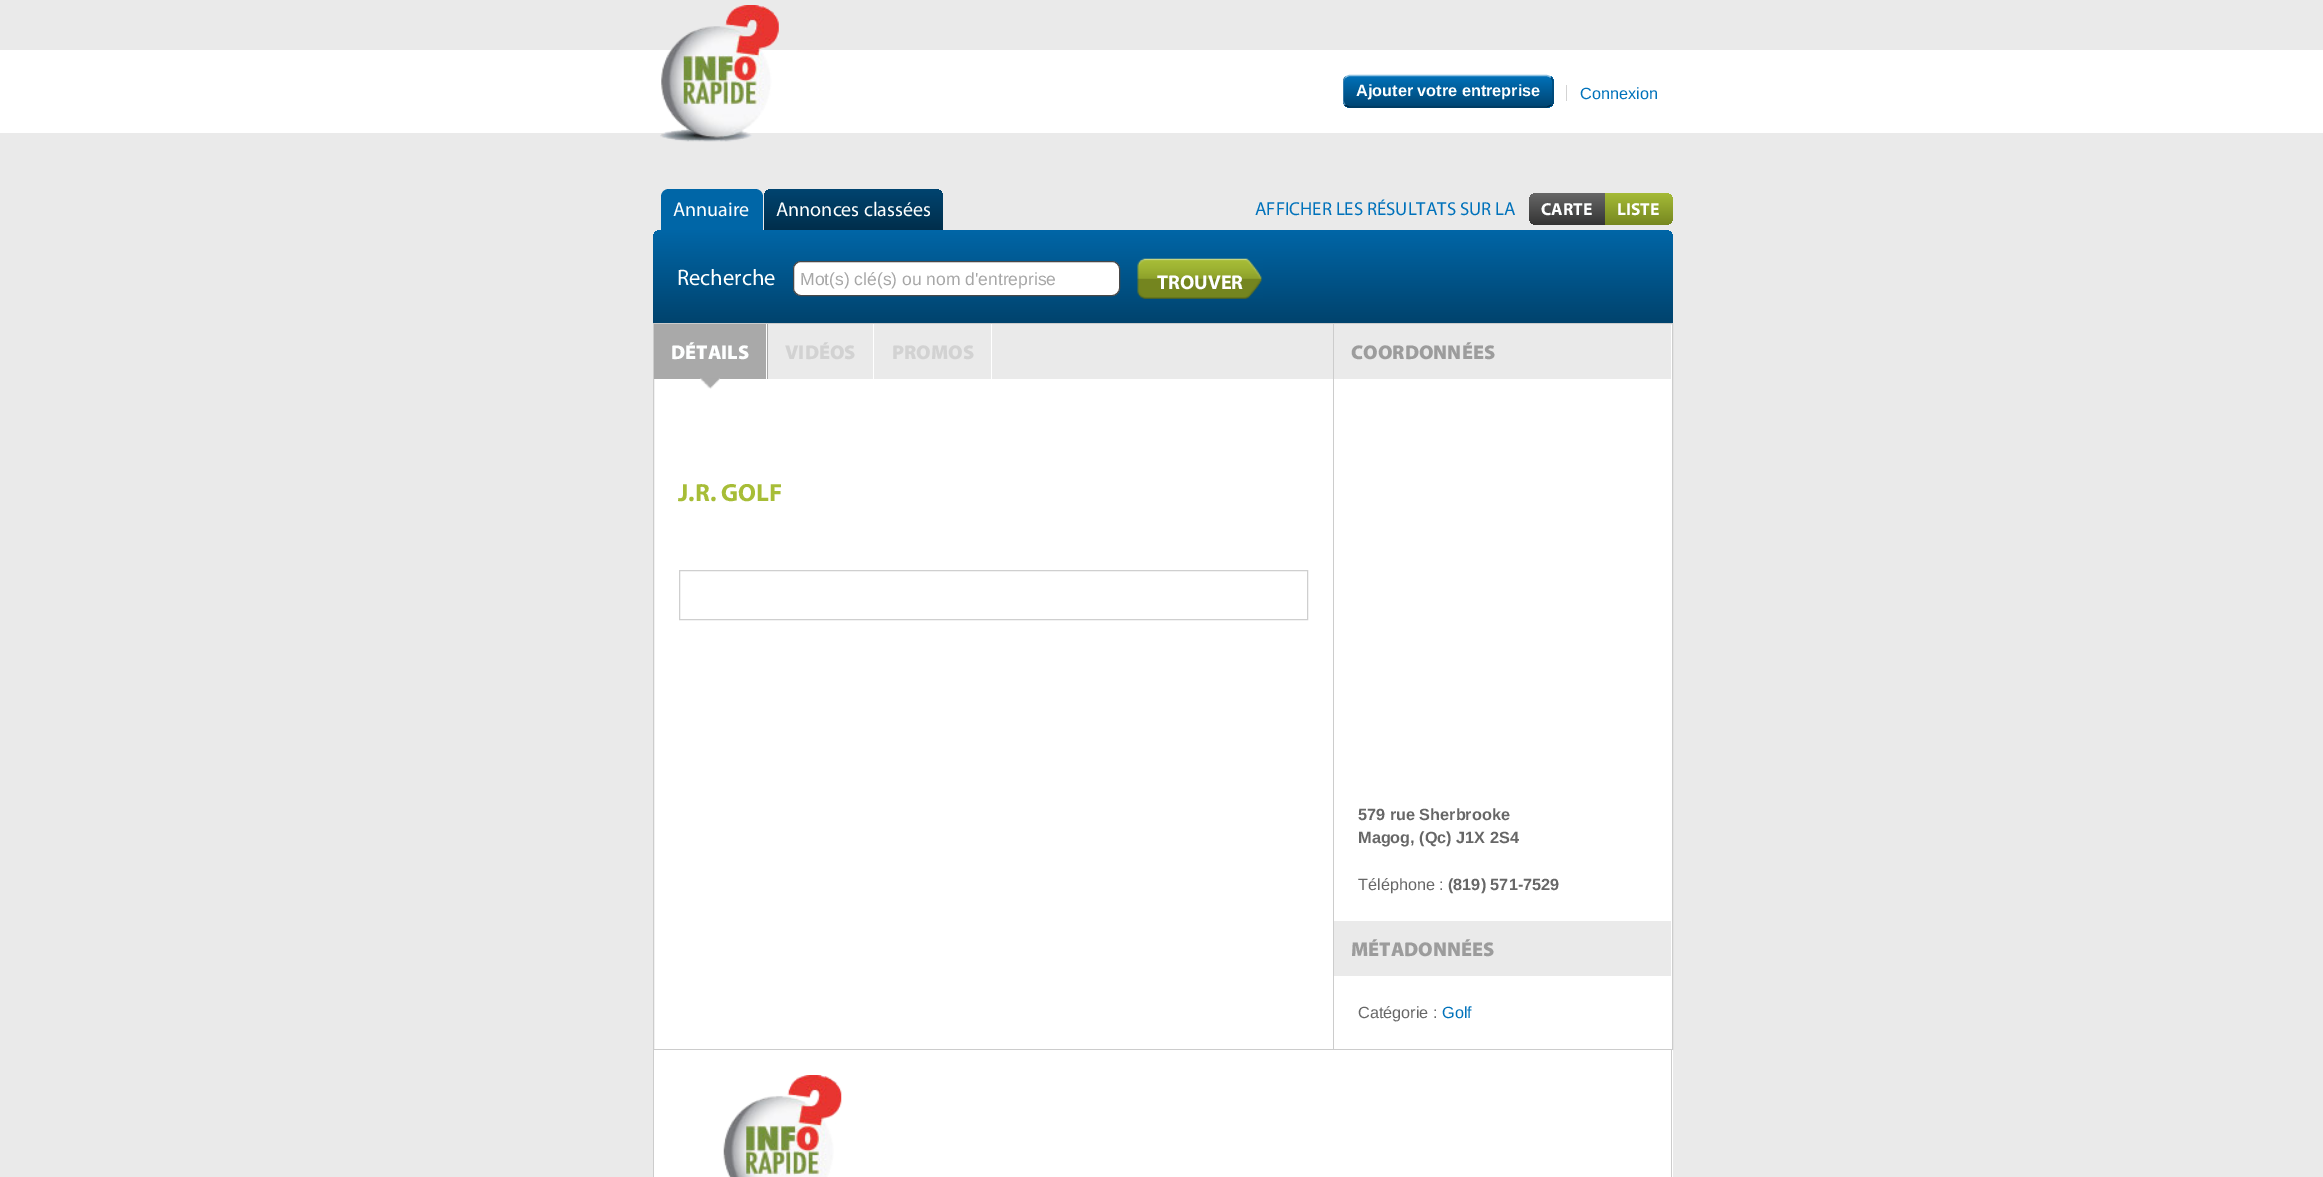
%!PS
<< /PageSize [2323 1177] >> setpagedevice
/rgb { 3 { 255 div 3 1 roll } repeat setrgbcolor } def
/font { [ exch dup neg 0 0 3 -1 roll 0 0 ] selectfont } def
/roundrect { 5 dict begin { /r /h /w /y /x } { exch def } forall
  x r add y moveto x w add y 2 copy h add r arct x w add y h add x 1 index r arct
  x y h add x y r arct x y 2 copy exch w add exch r arct closepath end } def
/picture { 5 dict begin { /h /w /y /x /name } { exch def } forall
  gsave x y translate w h scale
  w h 8 [w 0 0 h 0 0] name (r) file false 3 colorimage grestore end } def
0 1177 translate 1 -1 scale
4 setmiterlimit
234 234 234 rgb
0 0 2323 1177 rectfill
255 255 255 rgb
0 50 2323 83 rectfill
(img/1.rgb) 660 5 119 137 picture
gsave
1343 75 211 33 8 roundrect clip newpath
gsave 1343 76 moveto 1554 76 lineto 1554 106 lineto 1343 106 lineto closepath clip newpath
<< /ShadingType 2 /ColorSpace /DeviceRGB /Coords [1448 76 1448 106] /Extend [true true] /Function << /FunctionType 2 /Domain [0 1] /C0 [0 0.443 0.725] /C1 [0 0.275 0.455] /N 1 >> >> shfill grestore
gsave 1343 106 moveto 1554 106 lineto 1554 108 lineto 1343 108 lineto closepath clip newpath
<< /ShadingType 2 /ColorSpace /DeviceRGB /Coords [1448 106 1448 136] /Extend [true true] /Function << /FunctionType 2 /Domain [0 1] /C0 [0 0.443 0.725] /C1 [0 0.275 0.455] /N 1 >> >> shfill grestore
grestore
144 194 225 rgb
1.2 setlinewidth
1345 77.5 moveto 1346.5 76.5 1348 75.5 1350 75.5 curveto 1546 75.5 lineto 1548 75.5 1550 76.5 1551 77.5 curveto stroke
0 72 118 rgb
1551 77.5 moveto 1552.5 79 1553 80.5 1553 82.5 curveto 1553 100 lineto 1553 102 1552.5 103.5 1551 105 curveto stroke
0 42 70 rgb
1551 105 moveto 1550 106 1548 107 1546 107 curveto 1350 107 lineto 1348 107 1346.5 106 1345 105 curveto stroke
gsave
1343 63 328 57 rectclip
72 137 180 rgb
1345 105 moveto 1344 103.5 1343 102 1343 100 curveto 1343 82.5 lineto 1343 80.5 1344 79 1345 77.5 curveto stroke
grestore
211 211 211 rgb
1566 85 1 16 rectfill
0 102 167 rgb
669 189 moveto 755 189 lineto 759.5 189 763 192.5 763 197 curveto 763 230 lineto 661 230 lineto 661 197 lineto 661 192.5 664.5 189 669 189 curveto closepath fill
gsave 772 189 moveto 935 189 lineto 939.5 189 943 192.5 943 197 curveto 943 230 lineto 764 230 lineto 764 197 lineto 764 192.5 767.5 189 772 189 curveto closepath clip newpath
<< /ShadingType 2 /ColorSpace /DeviceRGB /Coords [853 189 853 230] /Extend [true true] /Function << /FunctionType 2 /Domain [0 1] /C0 [0 0.267 0.439] /C1 [0 0.18 0.294] /N 1 >> >> shfill grestore
gsave 1537 193 moveto 1605 193 lineto 1605 225 lineto 1537 225 lineto 1532.5 225 1529 221.5 1529 217 curveto 1529 201 lineto 1529 196.5 1532.5 193 1537 193 curveto closepath clip newpath
<< /ShadingType 2 /ColorSpace /DeviceRGB /Coords [1567 193 1567 225] /Extend [true true] /Function << /FunctionType 2 /Domain [0 1] /C0 [0.404 0.404 0.404] /C1 [0.204 0.204 0.204] /N 1 >> >> shfill grestore
gsave 1605 193 moveto 1665 193 lineto 1669.5 193 1673 196.5 1673 201 curveto 1673 217 lineto 1673 221.5 1669.5 225 1665 225 curveto 1605 225 lineto closepath clip newpath
<< /ShadingType 2 /ColorSpace /DeviceRGB /Coords [1639 193 1639 225] /Extend [true true] /Function << /FunctionType 2 /Domain [0 1] /C0 [0.647 0.733 0.216] /C1 [0.463 0.529 0.125] /N 1 >> >> shfill grestore
gsave 661 230 moveto 1665 230 lineto 1669.5 230 1673 233.5 1673 238 curveto 1673 323 lineto 653 323 lineto 653 238 lineto 653 233.5 656.5 230 661 230 curveto closepath clip newpath
<< /ShadingType 2 /ColorSpace /DeviceRGB /Coords [1163 230 1163 323] /Extend [true true] /Function << /FunctionType 2 /Domain [0 1] /C0 [0 0.4 0.655] /C1 [0 0.263 0.427] /N 1 >> >> shfill grestore
255 255 255 rgb
793.5 261.5 326 34 7.5 roundrect gsave fill grestore
72 72 72 rgb
1 setlinewidth
stroke
(img/2.rgb) 1137 258 126 41 picture
255 255 255 rgb
653.5 323.5 moveto 1672.5 323.5 lineto 1672.5 1049.5 lineto 653.5 1049.5 lineto closepath gsave fill grestore
204 204 204 rgb
stroke
[
  [768 324 565 55 234 234 234]
  [654 324 114 55 169 169 169]
  [766 324 1 55 255 255 255]
] { aload pop rgb rectfill } forall
(img/3.rgb) 700 378 20 11 picture
873 324 1 55 rectfill
991 324 1 55 rectfill
207 207 207 rgb
679.5 570.5 628 49 rectstroke
[
  [1333 324 1 725 204 204 204]
  [1334 324 337 55 234 234 234]
  [1334 921 337 55 234 234 234]
  [654 1050 1019 127 255 255 255]
  [1671 1050 1 127 204 204 204]
  [653 1050 1 127 204 204 204]
] { aload pop rgb rectfill } forall
(img/4.rgb) 723 1075 119 102 picture
/LiberationSans-Bold 16.25 font
254 255 255 rgb
1356 96 moveto (Ajouter votre entreprise) show
/LiberationSans-Regular 16.25 font
0 114 187 rgb
1580 99 moveto (Connexion) show
/Myriad-Regular 20 font
254 255 255 rgb
673 216 moveto (Annuaire) show
776 216 moveto (Annonces classées) show
/Myriad-Regular 18.75 font
0 114 187 rgb
1255 215 moveto (AFFICHER LES RÉSULTATS SUR LA) show
/Myriad-Bold 17.5 font
254 255 255 rgb
1541 215 moveto (CARTE) show
1617 215 moveto (LISTE) show
/Myriad-Regular 22.5 font
677 285 moveto (Recherche) show
/LiberationSans-Regular 17.5 font
167 167 167 rgb
800 285 moveto (Mot\(s\) clé\(s\) ou nom d'entreprise) show
/Myriad-Bold 20 font
254 255 255 rgb
1157 289 moveto (TROUVER) show
/Myriad-Black 20 font
671 359 moveto (DÉTAILS) show
210 210 210 rgb
785 359 moveto (VIDÉOS) show
892 359 moveto (PROMOS) show
/Myriad-Bold 25 font
167 189 55 rgb
678 501 moveto (J.R. GOLF) show
/Myriad-Black 20 font
156 156 156 rgb
1351 359 moveto (COORDONNÉES) show
/LiberationSans-Bold 16.25 font
103 103 103 rgb
1358 820 moveto (579 rue Sherbrooke) show
1358 843 moveto (Magog, \(Qc\) J1X 2S4) show
/LiberationSans-Regular 16.25 font
1358 890 moveto (Téléphone :) show
/LiberationSans-Bold 16.25 font
1448 890 moveto (\(819\) 571-7529) show
/Myriad-Black 20 font
156 156 156 rgb
1351 956 moveto (MÉTADONNÉES) show
/LiberationSans-Regular 16.25 font
103 103 103 rgb
1358 1018 moveto (Catégorie :) show
0 114 187 rgb
1442 1018 moveto (Golf) show
showpage
